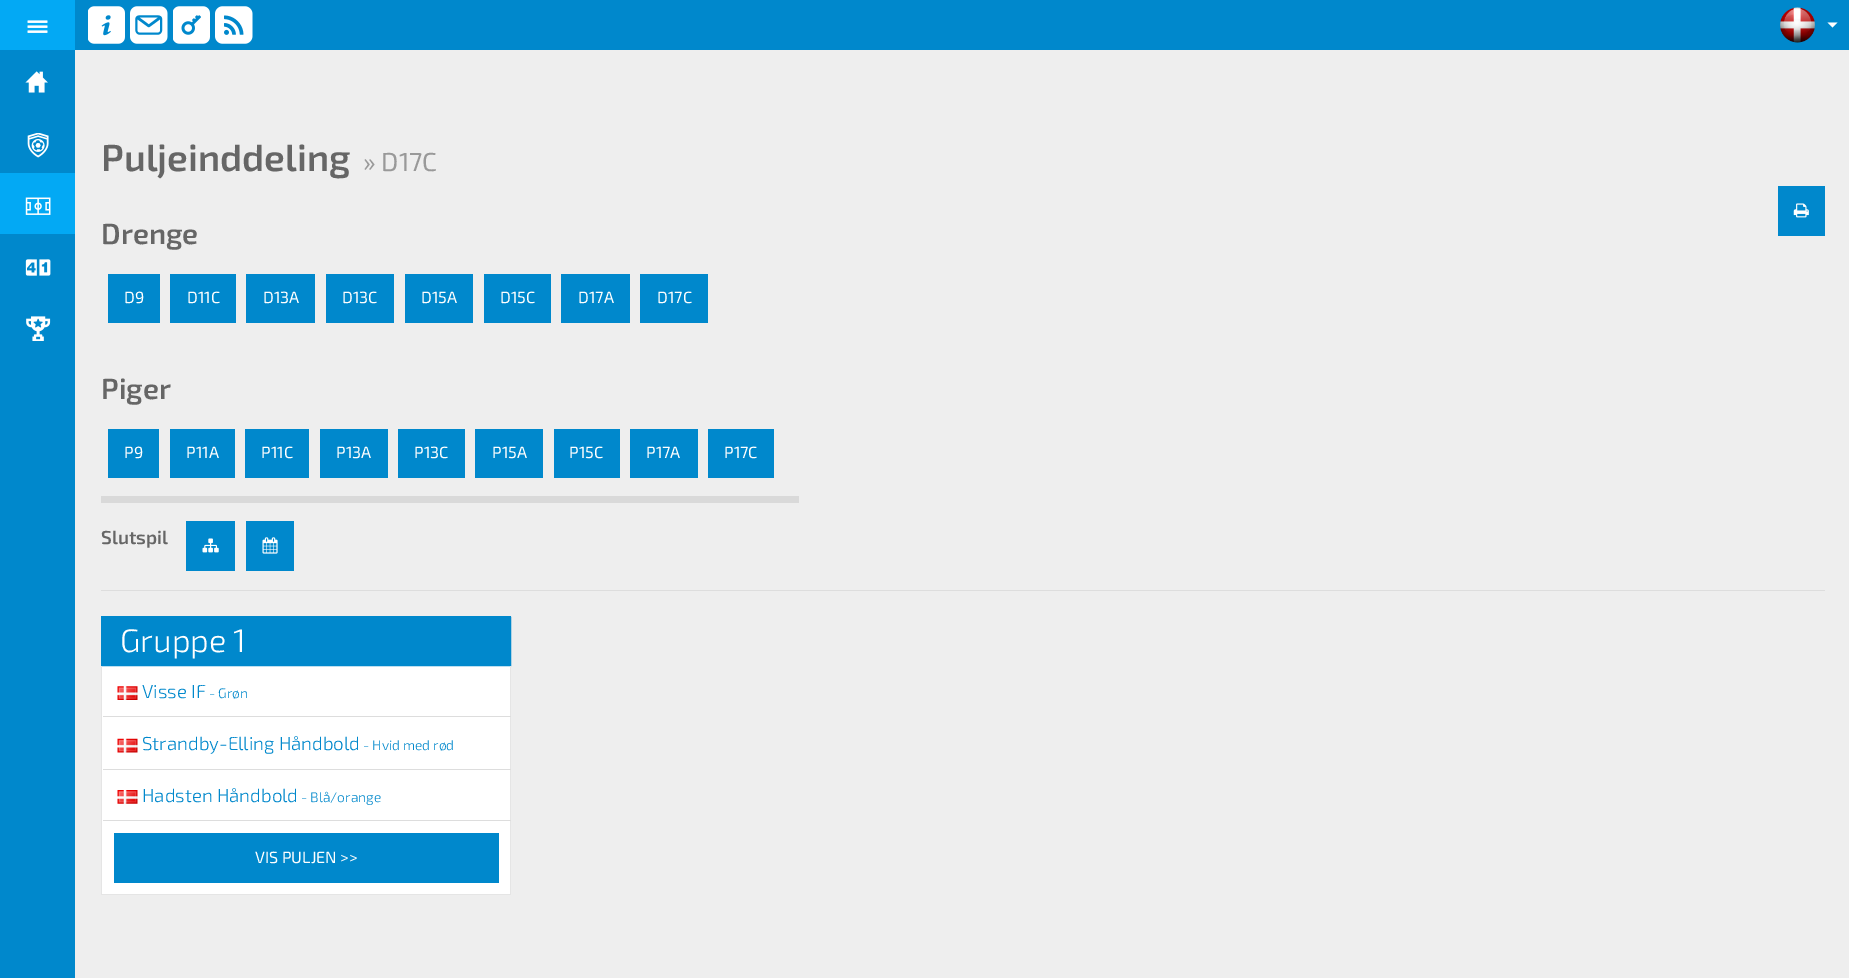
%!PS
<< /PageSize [1849 978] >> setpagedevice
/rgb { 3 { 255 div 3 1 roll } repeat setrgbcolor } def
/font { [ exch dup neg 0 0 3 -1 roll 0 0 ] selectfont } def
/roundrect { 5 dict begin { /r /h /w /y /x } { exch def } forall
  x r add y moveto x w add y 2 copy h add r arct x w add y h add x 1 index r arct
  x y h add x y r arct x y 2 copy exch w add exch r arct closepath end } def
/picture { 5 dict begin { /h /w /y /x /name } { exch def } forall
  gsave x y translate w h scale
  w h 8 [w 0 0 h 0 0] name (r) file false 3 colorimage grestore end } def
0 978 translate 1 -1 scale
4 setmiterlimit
238 238 238 rgb
0 0 1849 978 rectfill
0 136 204 rgb
75 0 1774 50 rectfill
3 169 244 rgb
0 0 75 50 rectfill
(img/1.rgb) 27 20 21 13 picture
(img/2.rgb) 88 6 37 38 picture
(img/3.rgb) 130 6 38 38 picture
(img/4.rgb) 173 6 37 38 picture
(img/5.rgb) 215 6 38 38 picture
(img/6.rgb) 1780 7 35 36 picture
255 255 255 rgb
1827.5 22.5 moveto 1837.5 22.5 lineto 1832.5 27.5 lineto closepath fill
0 136 204 rgb
0 50 75 928 rectfill
(img/7.rgb) 25 71 23 22 picture
(img/8.rgb) 27 133 22 25 picture
3 169 244 rgb
0 173 75 61 rectfill
(img/9.rgb) 25 197 26 18 picture
(img/10.rgb) 25 259 26 17 picture
(img/11.rgb) 26 316 25 25 picture
0 136 204 rgb
1778 186 47 50 rectfill
(img/12.rgb) 1793 203 16 15 picture
[
  [101 496 698 7 217 217 217]
  [108 274 52 49 0 136 204]
  [170 274 66 49 0 136 204]
  [246 274 69 49 0 136 204]
  [326 274 68 49 0 136 204]
  [405 274 68 49 0 136 204]
  [484 274 67 49 0 136 204]
  [561 274 69 49 0 136 204]
  [640 274 68 49 0 136 204]
  [108 429 51 49 0 136 204]
  [170 429 65 49 0 136 204]
  [245 429 64 49 0 136 204]
  [320 429 68 49 0 136 204]
  [398 429 67 49 0 136 204]
  [475 429 68 49 0 136 204]
  [554 429 66 49 0 136 204]
  [630 429 68 49 0 136 204]
  [708 429 66 49 0 136 204]
  [186 521 49 50 0 136 204]
] { aload pop rgb rectfill } forall
(img/13.rgb) 202 538 17 15 picture
246 521 48 50 rectfill
(img/14.rgb) 262 537 16 17 picture
221 221 221 rgb
101 590 1724 1 rectfill
255 255 255 rgb
101 616 410 279 2.5 roundrect fill
0 136 204 rgb
102 616.5 moveto 510 616.5 lineto 510.5 616.5 510.5 616.5 510.5 617 curveto 510.5 665.5 lineto 101.5 665.5 lineto 101.5 617 lineto 101.5 616.5 101.5 616.5 102 616.5 curveto closepath gsave fill grestore
stroke
[
  [510 666 1 229 229 229 229]
  [101 894 410 1 229 229 229]
  [101 666 1 229 229 229 229]
] { aload pop rgb rectfill } forall
(img/15.rgb) 117 686 21 14 picture
221 221 221 rgb
103 716 408 1 rectfill
(img/16.rgb) 117 738 21 15 picture
103 769 408 1 rectfill
(img/17.rgb) 117 790 21 14 picture
103 820 408 1 rectfill
0 136 204 rgb
114 833 385 50 rectfill
/Exo2-SemiBold 37.5 font
102 102 102 rgb
101 171 moveto (Puljeinddeling) show
/Exo2-Regular 26 font
153 153 153 rgb
363 171 moveto (» D17C) show
/Exo2-SemiBold 29 font
102 102 102 rgb
101 244 moveto (Drenge) show
/Exo2-Regular 16.25 font
255 255 255 rgb
[
  [(D9) 124 303]
  [(D11C) 187 303]
  [(D13A) 263 303]
  [(D13C) 342 303]
  [(D15A) 421 303]
  [(D15C) 500 303]
  [(D17A) 578 303]
  [(D17C) 657 303]
] { aload pop moveto show } forall
/Exo2-SemiBold 29 font
102 102 102 rgb
101 399 moveto (Piger) show
/Exo2-Regular 16.25 font
255 255 255 rgb
[
  [(P9) 124 458]
  [(P11A) 186 458]
  [(P11C) 261 458]
  [(P13A) 336 458]
  [(P13C) 414 458]
  [(P15A) 492 458]
  [(P15C) 569 458]
  [(P17A) 646 458]
  [(P17C) 724 458]
] { aload pop moveto show } forall
/Exo2-SemiBold 18.75 font
102 102 102 rgb
101 544 moveto (Slutspil) show
/Exo2-Light 32.5 font
255 255 255 rgb
120 652 moveto (Gruppe 1) show
/Exo2-Light 18.75 font
0 136 204 rgb
142 698 moveto (Visse IF) show
/Exo2-Light 13.75 font
209 698 moveto (- Grøn) show
/Exo2-Light 18.75 font
142 750 moveto (Strandby-Elling Håndbold) show
/Exo2-Light 13.75 font
363 750 moveto (- Hvid med rød) show
/Exo2-Light 18.75 font
142 802 moveto (Hadsten Håndbold) show
/Exo2-Light 13.75 font
301 802 moveto (- Blå/orange) show
/Exo2-Regular 16.25 font
255 255 255 rgb
255 863 moveto (VIS PULJEN >>) show
showpage
